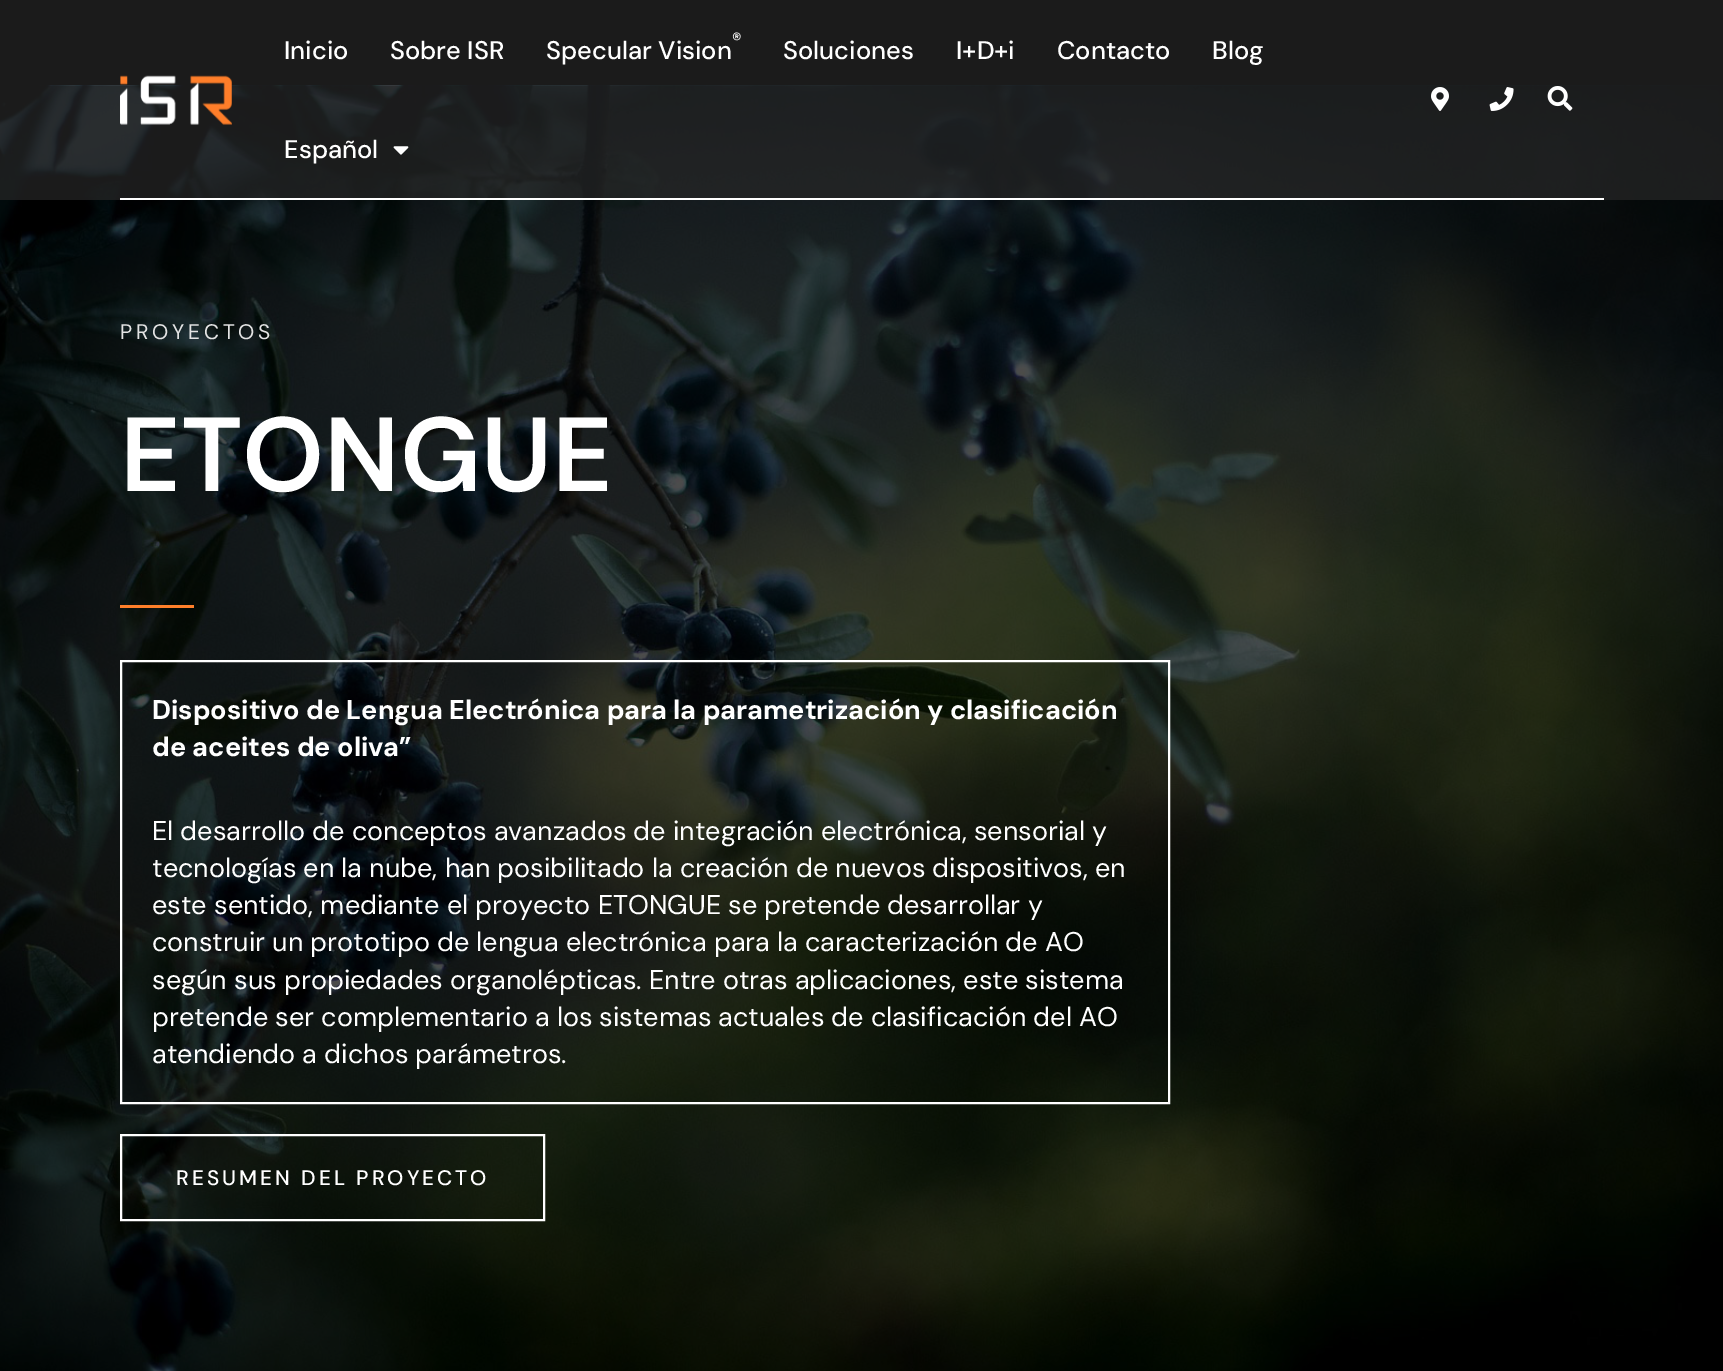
%!PS
<< /PageSize [1723 1371] /PageUsesTransparency true >> setpagedevice
/rgb { 3 { 255 div 3 1 roll } repeat setrgbcolor } def
/font { [ exch dup neg 0 0 3 -1 roll 0 0 ] selectfont } def
/alpha { dup .setfillconstantalpha .setstrokeconstantalpha } def
/picture { 5 dict begin { /h /w /y /x /name } { exch def } forall
  gsave x y translate w h scale
  w h 8 [w 0 0 h 0 0] name (r) file false 3 colorimage grestore end } def
0 .pushpdf14devicefilter
0 1371 translate 1 -1 scale
4 setmiterlimit
0 0 0 rgb
0 0 1723 1371 rectfill
(img/6.rgb) 0 85 1723 1286 picture
0.71 alpha
38 38 38 rgb
0 0 1723 200 rectfill
1 alpha
255 255 255 rgb
120 198 1484 2 rectfill
(img/1.rgb) 120 75 112 50 picture
(img/2.rgb) 393 146 16 9 picture
(img/3.rgb) 1431 87 18 24 picture
(img/4.rgb) 1489 87 25 24 picture
(img/5.rgb) 1547 86 26 25 picture
255 127 42 rgb
120 605 74 3 rectfill
255 255 255 rgb
2 setlinewidth
121 661 1048 442 rectstroke
121 1135 423 85 rectstroke
/DMSans-Medium 25.5 font
284 59 moveto (Inicio) show
390 59 moveto (Sobre ISR) show
/DMSans-Medium 19 font
732 46 moveto (®) show
/DMSans-Medium 25.5 font
[
  [(Specular Vision) 546 59]
  [(Soluciones) 783 59]
  [(I+D+i) 956 59]
  [(Contacto) 1057 59]
  [(Blog) 1212 59]
  [(Español) 284 158]
] { aload pop moveto show } forall
/DMSans-Regular 21 font
228 228 228 rgb
120 339 moveto 3.75 0 (PROYECTOS) ashow
/DMSans-SemiBold 105 font
255 255 255 rgb
120 491 moveto (ETONGUE) show
/DMSans-Bold 27 font
152 719 moveto (Dispositivo de Lengua Electrónica para la parametrización y clasificación) show
152 756 moveto (de aceites de oliva”) show
/DMSans-Regular 27 font
[
  [(El desarrollo de conceptos avanzados de integración electrónica, sensorial y) 152 840]
  [(tecnologías en la nube, han posibilitado la creación de nuevos dispositivos, en) 152 877]
  [(este sentido, mediante el proyecto ETONGUE se pretende desarrollar y) 152 914]
  [(construir un prototipo de lengua electrónica para la caracterización de AO) 152 951]
  [(según sus propiedades organolépticas. Entre otras aplicaciones, este sistema) 152 989]
  [(pretende ser complementario a los sistemas actuales de clasificación del AO) 152 1026]
  [(atendiendo a dichos parámetros.) 152 1063]
] { aload pop moveto show } forall
/DMSans-Medium 21 font
176 1185 moveto 3 0 (RESUMEN DEL PROYECTO) ashow
.poppdf14devicefilter showpage
